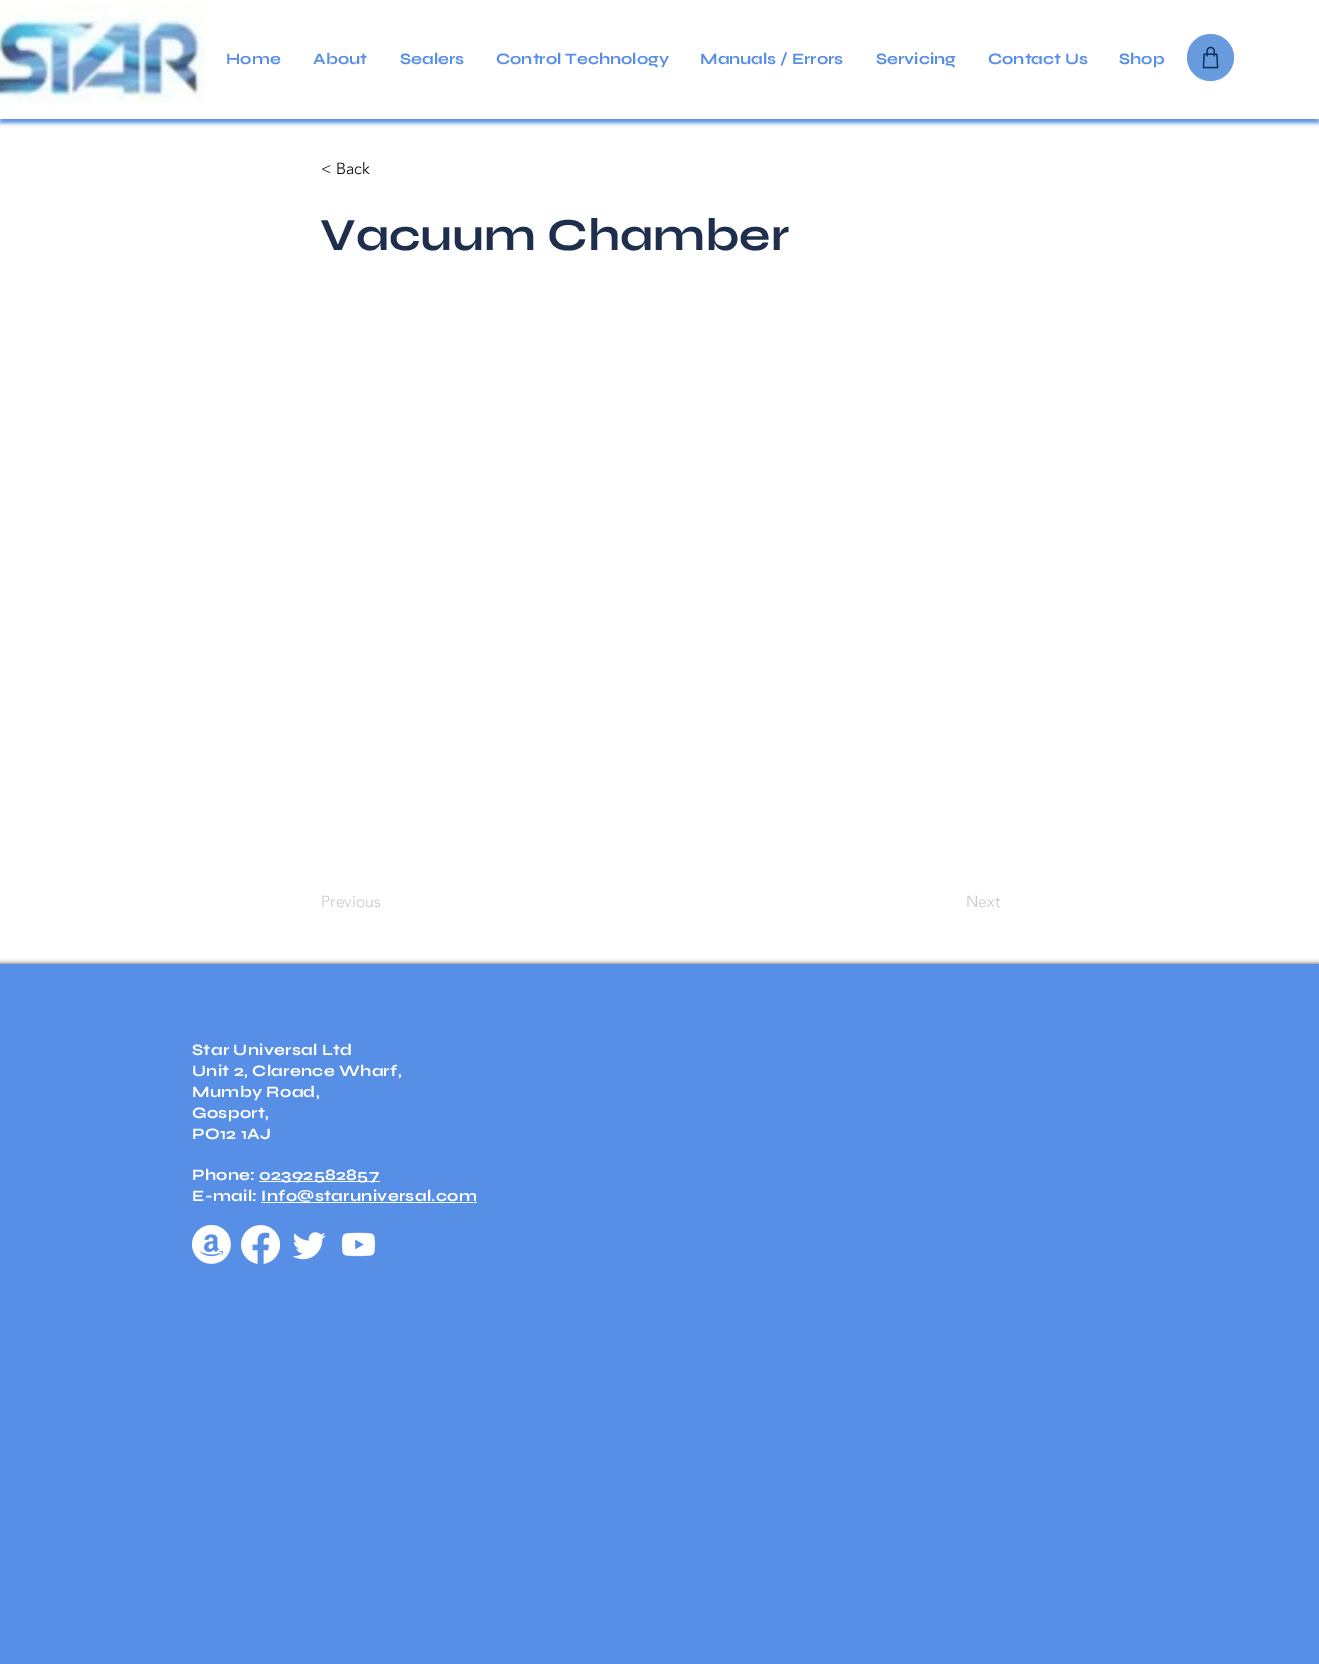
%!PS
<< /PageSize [1319 1664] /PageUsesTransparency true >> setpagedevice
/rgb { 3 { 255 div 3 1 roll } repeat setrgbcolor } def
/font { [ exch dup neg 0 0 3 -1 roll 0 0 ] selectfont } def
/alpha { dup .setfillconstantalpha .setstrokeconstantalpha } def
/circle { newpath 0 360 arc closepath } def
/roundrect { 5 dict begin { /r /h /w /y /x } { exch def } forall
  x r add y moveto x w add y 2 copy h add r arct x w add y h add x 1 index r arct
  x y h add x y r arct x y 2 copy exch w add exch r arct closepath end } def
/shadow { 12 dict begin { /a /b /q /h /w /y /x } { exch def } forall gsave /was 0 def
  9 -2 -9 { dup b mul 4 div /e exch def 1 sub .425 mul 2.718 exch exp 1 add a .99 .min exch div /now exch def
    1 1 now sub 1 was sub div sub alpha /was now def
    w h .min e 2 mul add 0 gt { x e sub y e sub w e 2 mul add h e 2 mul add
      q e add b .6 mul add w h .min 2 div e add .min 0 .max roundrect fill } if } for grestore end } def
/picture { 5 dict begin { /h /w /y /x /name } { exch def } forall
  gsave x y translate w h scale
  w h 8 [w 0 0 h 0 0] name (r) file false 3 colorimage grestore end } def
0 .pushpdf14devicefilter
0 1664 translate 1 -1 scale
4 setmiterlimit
255 255 255 rgb
0 0 1319 1664 rectfill
gsave
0 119 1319 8 rectclip
87 142 230 rgb
0 4 1319 119 0 2 1 shadow
grestore
(img/1.rgb) 0 4 205 100 picture
104 154 222 rgb
1210.5 57.5 23.5 circle fill
(img/2.rgb) 1202 46 17 23 picture
0 0 0 rgb
0 964 1319 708 0 2.5 0.7 shadow
[
  [0 964 1319 700 87 142 230]
  [259 1181 121 1 255 255 255]
  [261 1202 216 1 255 255 255]
] { aload pop rgb rectfill } forall
(img/3.rgb) 192 1225 39 39 picture
(img/4.rgb) 241 1225 39 39 picture
(img/5.rgb) 292 1232 34 28 picture
(img/6.rgb) 341 1232 35 25 picture
/Syne-Bold 16 font
87 142 230 rgb
[
  [(Home) 226 64]
  [(About) 313 64]
  [(Sealers) 400 64]
  [(Control Technology) 496 64]
  [(Manuals / Errors) 700 64]
  [(Servicing) 876 64]
  [(Contact Us) 988 64]
  [(Shop) 1119 64]
] { aload pop moveto show } forall
/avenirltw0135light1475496-Light 16 font
0 0 0 rgb
321 174 moveto (< Back) show
/Syne-Bold 46 font
29 47 77 rgb
320 250 moveto (Vacuum Chamber) show
/avenirltw0135light1475496-Light 16 font
199 199 199 rgb
321 907 moveto (Previous) show
966 907 moveto (Next) show
/Syne-Bold 16 font
255 255 255 rgb
192 1055 moveto 0.3 0 (Star Universal Ltd) ashow
192 1076 moveto 0.3 0 (Unit 2, Clarence Wharf,) ashow
192 1097 moveto 0.3 0 (Mumby Road,) ashow
192 1118 moveto 0.3 0 (Gosport,) ashow
192 1139 moveto 0.3 0 (PO12 1AJ) ashow
192 1180 moveto 0.3 0 (Phone:) ashow
259 1180 moveto 0.3 0 (02392582857) ashow
192 1201 moveto 0.3 0 (E-mail: Info@staruniversal.com) ashow
.poppdf14devicefilter showpage
